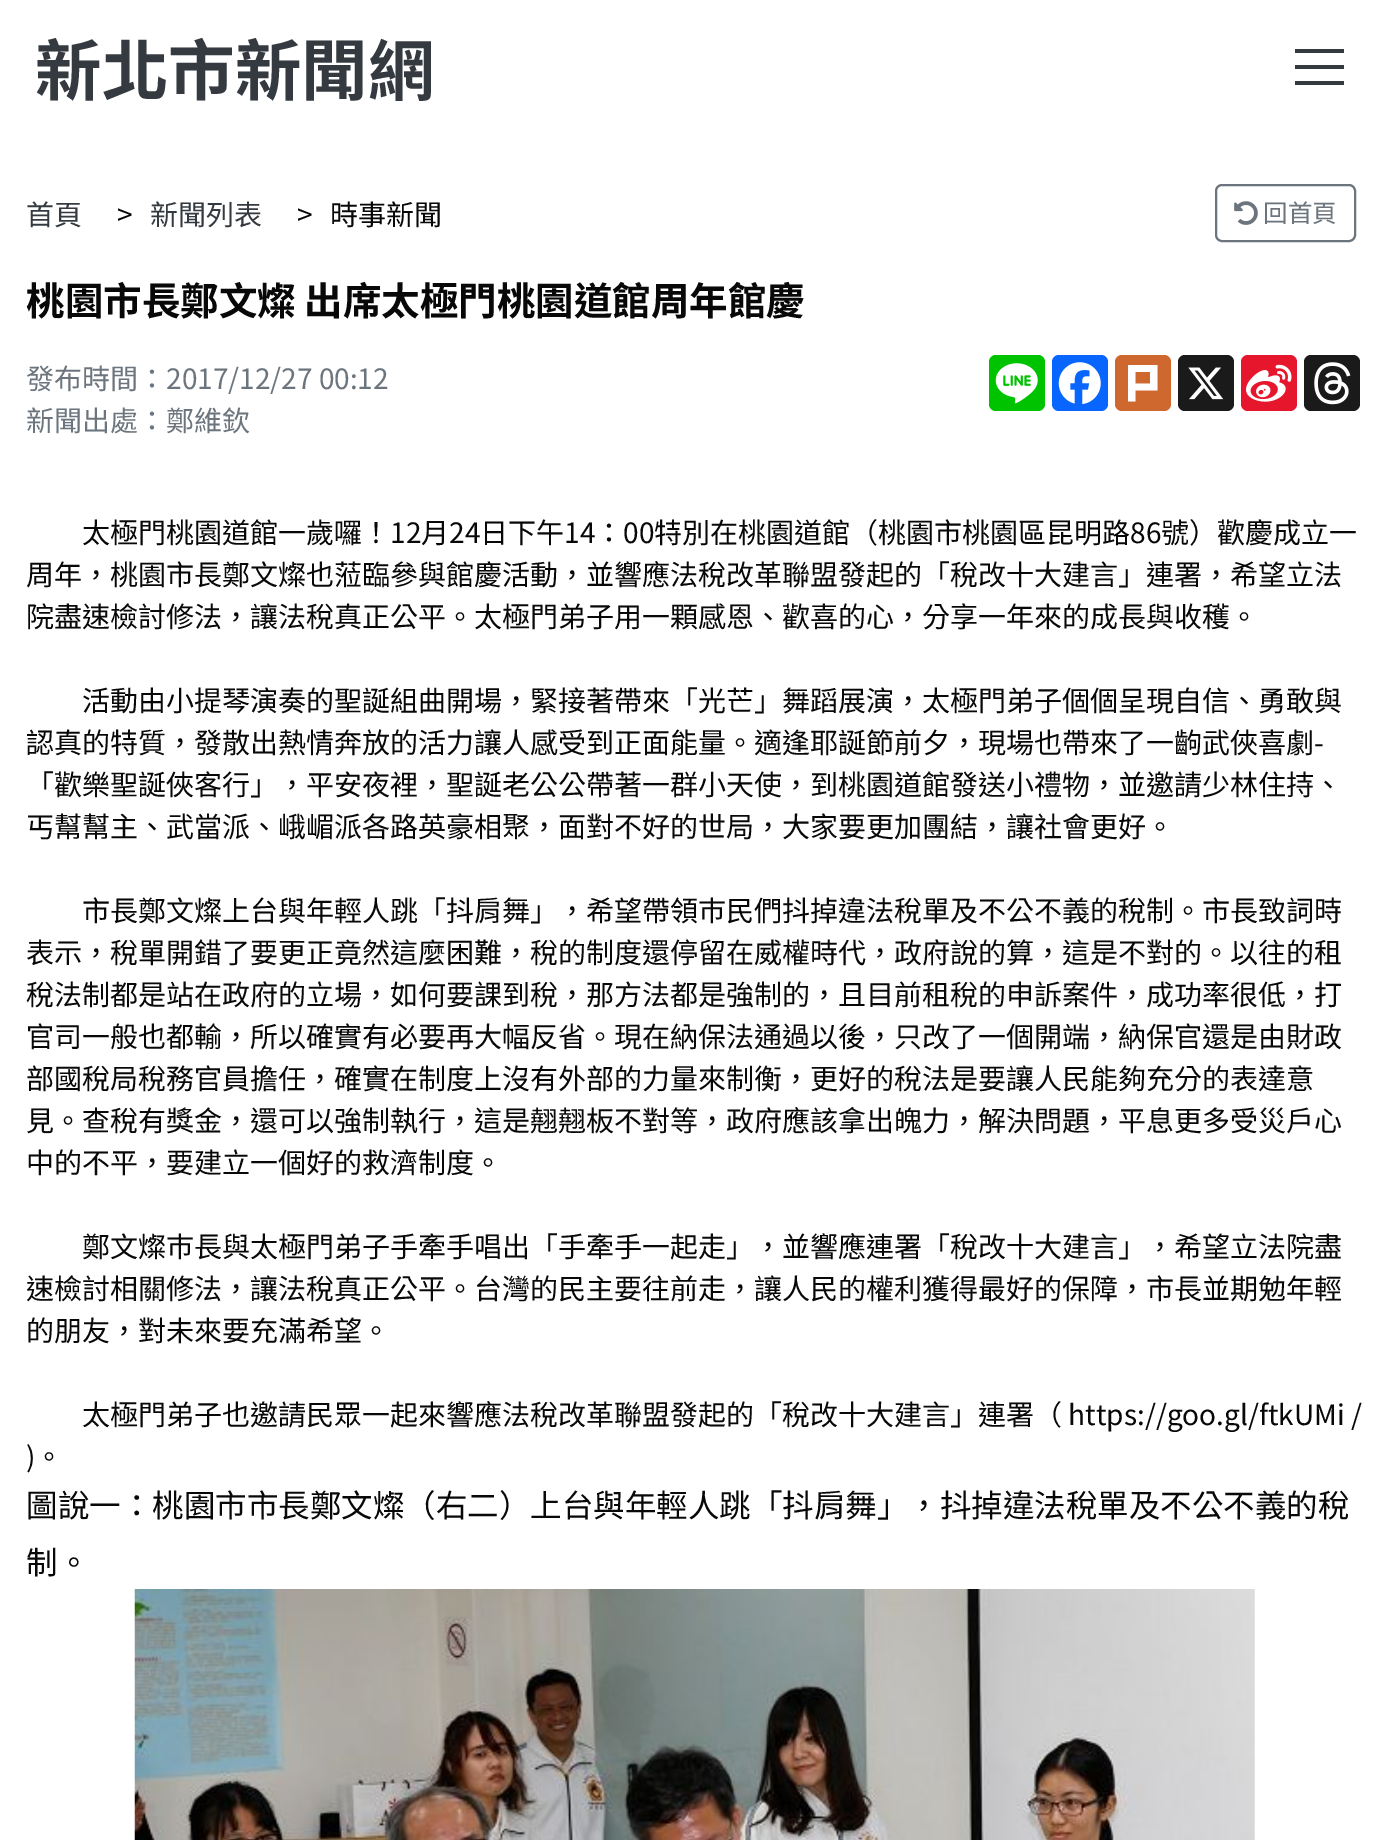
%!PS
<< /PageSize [1389 1840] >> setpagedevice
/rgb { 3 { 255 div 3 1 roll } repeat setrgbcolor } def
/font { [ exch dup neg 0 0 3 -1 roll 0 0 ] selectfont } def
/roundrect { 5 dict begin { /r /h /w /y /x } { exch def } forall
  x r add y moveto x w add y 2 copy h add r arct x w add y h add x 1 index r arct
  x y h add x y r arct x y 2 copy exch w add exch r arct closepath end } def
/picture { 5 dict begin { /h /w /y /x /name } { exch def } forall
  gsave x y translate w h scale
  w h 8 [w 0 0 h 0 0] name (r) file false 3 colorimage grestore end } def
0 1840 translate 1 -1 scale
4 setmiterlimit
255 255 255 rgb
0 0 1389 1840 rectfill
[
  [1295 65 49 4 52 58 64]
  [1295 49 49 4 52 58 64]
  [1295 81 49 4 52 58 64]
] { aload pop rgb rectfill } forall
108 117 125 rgb
2 setlinewidth
1216 185 139 56 6 roundrect stroke
(img/1.rgb) 1234 201 24 24 picture
0 195 0 rgb
989 355 56 56 7 roundrect fill
(img/2.rgb) 995 363 43 41 picture
8 102 255 rgb
1052 355 56 56 7 roundrect fill
(img/3.rgb) 1058 362 43 43 picture
207 104 47 rgb
1115 355 56 56 7 roundrect fill
255 255 255 rgb
1150 383.5 moveto 1135.5 383.5 lineto 1135.5 372 lineto 1150 372 lineto closepath 1157.5 390.5 moveto 1157.5 365 lineto 1128 365 lineto 1128 401.5 lineto 1135.5 401.5 lineto 1135.5 390.5 lineto closepath fill
26 26 26 rgb
1178 355 56 56 7 roundrect fill
(img/4.rgb) 1188 367 36 33 picture
230 22 45 rgb
1241 355 56 56 7 roundrect fill
(img/5.rgb) 1246 364 46 38 picture
26 26 26 rgb
1304 355 56 56 7 roundrect fill
(img/6.rgb) 1314 362 37 43 picture
(img/7.rgb) 134 1589 1121 251 picture
/NotoSansTC-Bold 66.5 font
52 58 64 rgb
35 95 moveto (新北市新聞網) show
/NotoSansTC-Regular 28 font
26 225 moveto (首頁) show
8 8 8 rgb
117 225 moveto (>) show
52 58 64 rgb
150 225 moveto (新聞列表) show
8 8 8 rgb
297 225 moveto (>) show
330 225 moveto (時事新聞) show
/NotoSansTC-Regular 24.5 font
108 117 125 rgb
1263 222 moveto (回首頁) show
/NotoSansTC-Bold 38.5 font
8 8 8 rgb
26 315 moveto (桃園市長鄭文燦 出席太極門桃園道館周年館慶) show
/NotoSansTC-Regular 28 font
108 117 125 rgb
26 389 moveto (發布時間：2017/12/27 00:12) show
26 431 moveto (新聞出處：鄭維欽) show
8 8 8 rgb
[
  [(太極門桃園道館一歲囉！12月24日下午14：00特別在桃園道館（桃園市桃園區昆明路86號）歡慶成立一) 82 543]
  [(周年，桃園市長鄭文燦也蒞臨參與館慶活動，並響應法稅改革聯盟發起的「稅改十大建言」連署，希望立法) 26 585]
  [(院盡速檢討修法，讓法稅真正公平。太極門弟子用一顆感恩、歡喜的心，分享一年來的成長與收穫。) 26 627]
  [(活動由小提琴演奏的聖誕組曲開場，緊接著帶來「光芒」舞蹈展演，太極門弟子個個呈現自信、勇敢與) 82 711]
  [(認真的特質，發散出熱情奔放的活力讓人感受到正面能量。適逢耶誕節前夕，現場也帶來了一齣武俠喜劇-) 26 753]
  [(「歡樂聖誕俠客行」，平安夜裡，聖誕老公公帶著一群小天使，到桃園道館發送小禮物，並邀請少林住持、) 26 795]
  [(丐幫幫主、武當派、峨嵋派各路英豪相聚，面對不好的世局，大家要更加團結，讓社會更好。) 26 837]
  [(市長鄭文燦上台與年輕人跳「抖肩舞」，希望帶領巿民們抖掉違法稅單及不公不義的稅制。市長致詞時) 82 921]
  [(表示，稅單開錯了要更正竟然這麼困難，稅的制度還停留在威權時代，政府說的算，這是不對的。以往的租) 26 963]
  [(稅法制都是站在政府的立場，如何要課到稅，那方法都是強制的，且目前租稅的申訴案件，成功率很低，打) 26 1005]
  [(官司一般也都輸，所以確實有必要再大幅反省。現在納保法通過以後，只改了一個開端，納保官還是由財政) 26 1047]
  [(部國稅局稅務官員擔任，確實在制度上沒有外部的力量來制衡，更好的稅法是要讓人民能夠充分的表達意) 26 1089]
  [(見。查稅有獎金，還可以強制執行，這是翹翹板不對等，政府應該拿出魄力，解決問題，平息更多受災戶心) 26 1131]
  [(中的不平，要建立一個好的救濟制度。) 26 1173]
  [(鄭文燦巿長與太極門弟子手牽手唱出「手牽手一起走」，並響應連署「稅改十大建言」，希望立法院盡) 82 1257]
  [(速檢討相關修法，讓法稅真正公平。台灣的民主要往前走，讓人民的權利獲得最好的保障，市長並期勉年輕) 26 1299]
  [(的朋友，對未來要充滿希望。) 26 1341]
  [(太極門弟子也邀請民眾一起來響應法稅改革聯盟發起的「稅改十大建言」連署（ https://goo.gl/ftkUMi /) 82 1425]
  [(\)。) 26 1467]
] { aload pop moveto show } forall
/NotoSansTC-Regular 31.5 font
26 1517 moveto (圖說一：桃園市市長鄭文燦（右二）上台與年輕人跳「抖肩舞」，抖掉違法稅單及不公不義的稅) show
26 1574 moveto (制。) show
showpage
